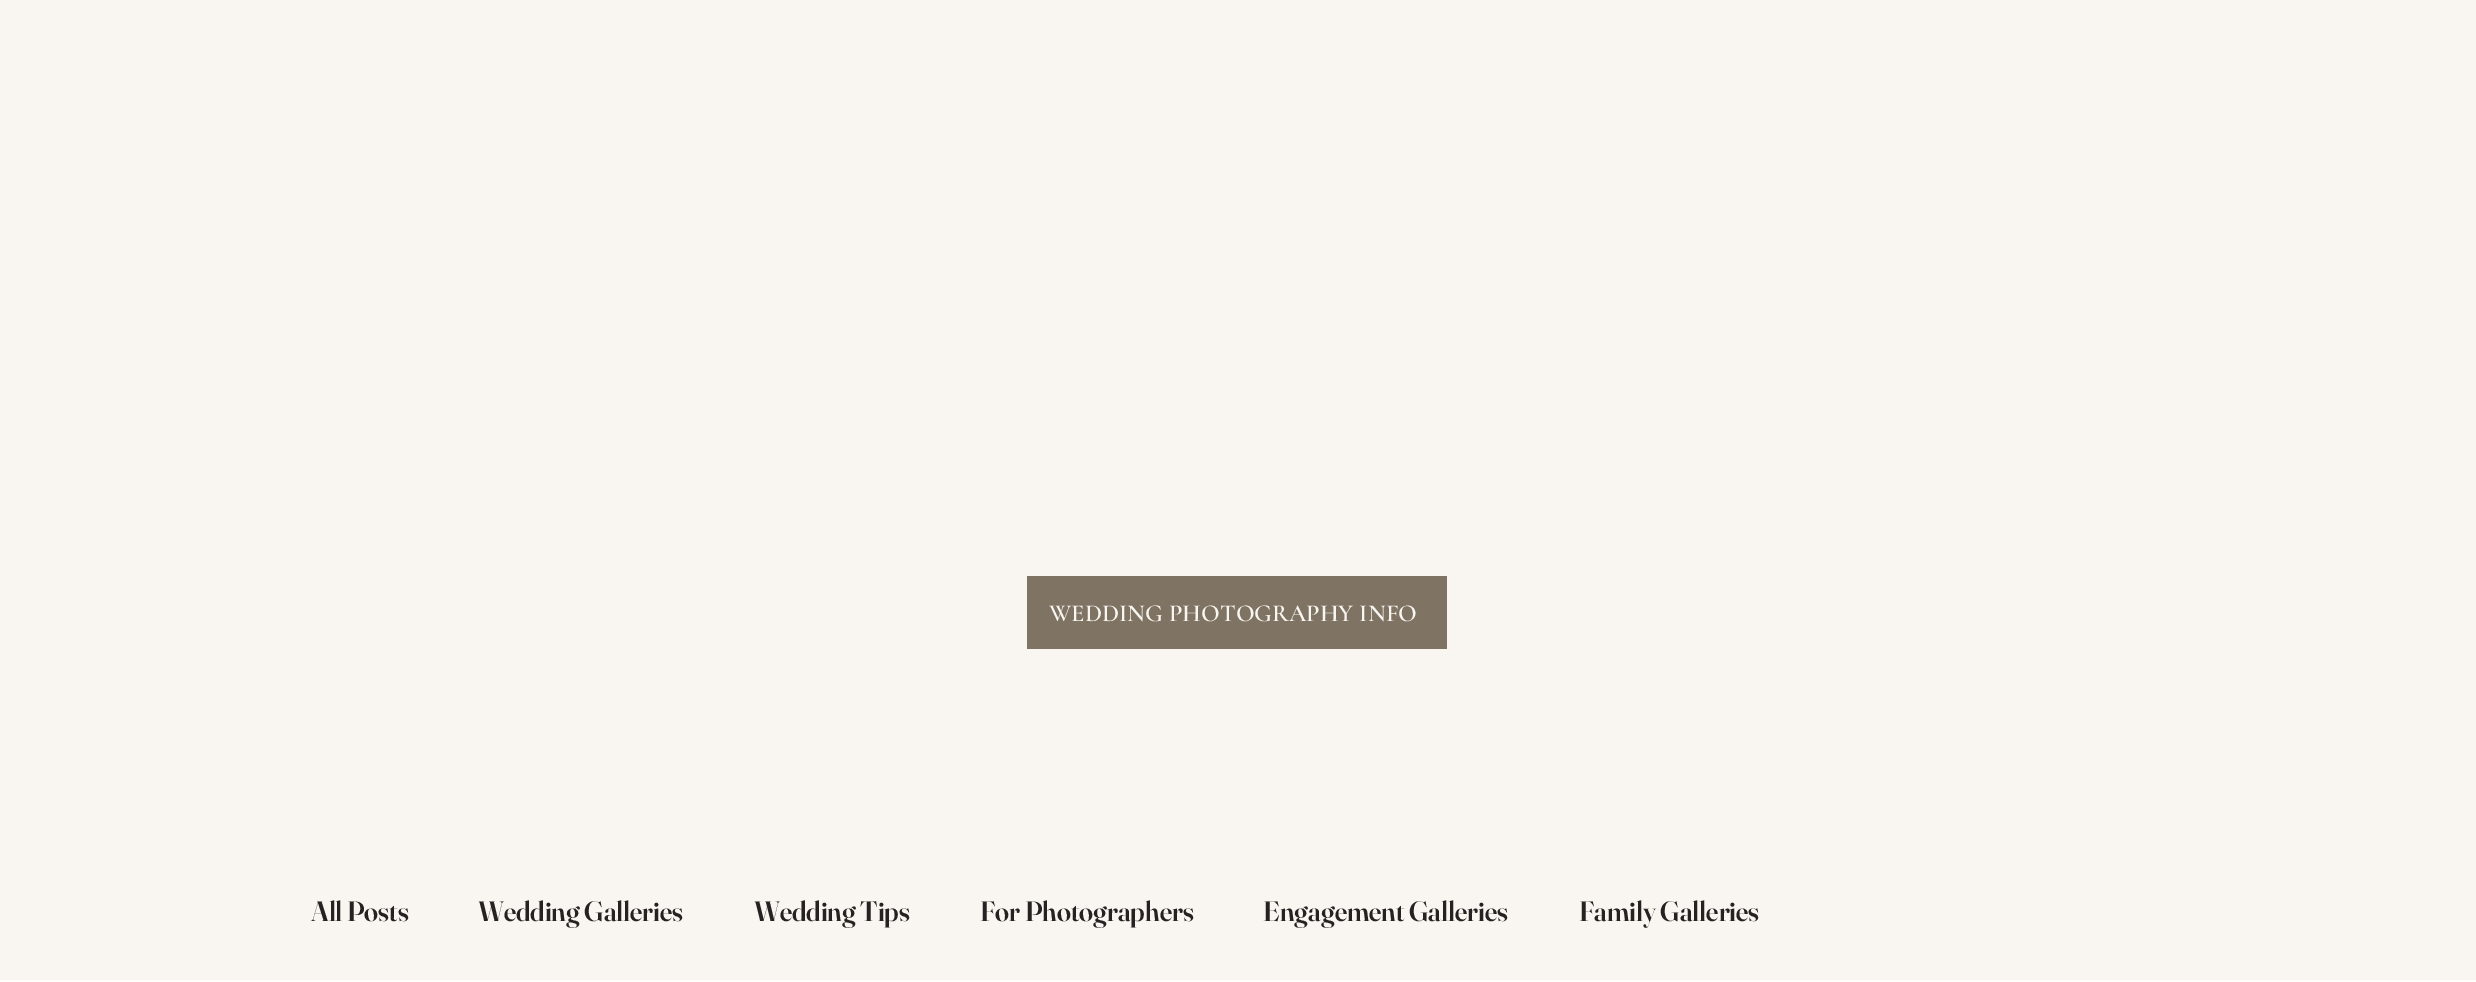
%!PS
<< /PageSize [2476 982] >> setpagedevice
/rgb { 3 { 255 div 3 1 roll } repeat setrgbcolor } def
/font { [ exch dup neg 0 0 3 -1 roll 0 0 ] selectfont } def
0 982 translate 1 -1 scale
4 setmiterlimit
249 246 241 rgb
0 0 2476 982 rectfill
127 115 99 rgb
1027 576 420 73 rectfill
255 253 250 rgb
0 980 2476 2 rectfill
/CormorantGaramond-SemiBold 24.5 font
249 246 241 rgb
1049 621 moveto (WEDDING PHOTOGRAPHY INFO) show
/Fraunces-SemiBold 28 font
37 35 34 rgb
[
  [(All Posts) 311 921]
  [(Wedding Galleries) 478 921]
  [(Wedding Tips) 754 921]
  [(For Photographers) 980 921]
  [(Engagement Galleries) 1263 921]
  [(Family Galleries) 1579 921]
] { aload pop moveto show } forall
showpage
